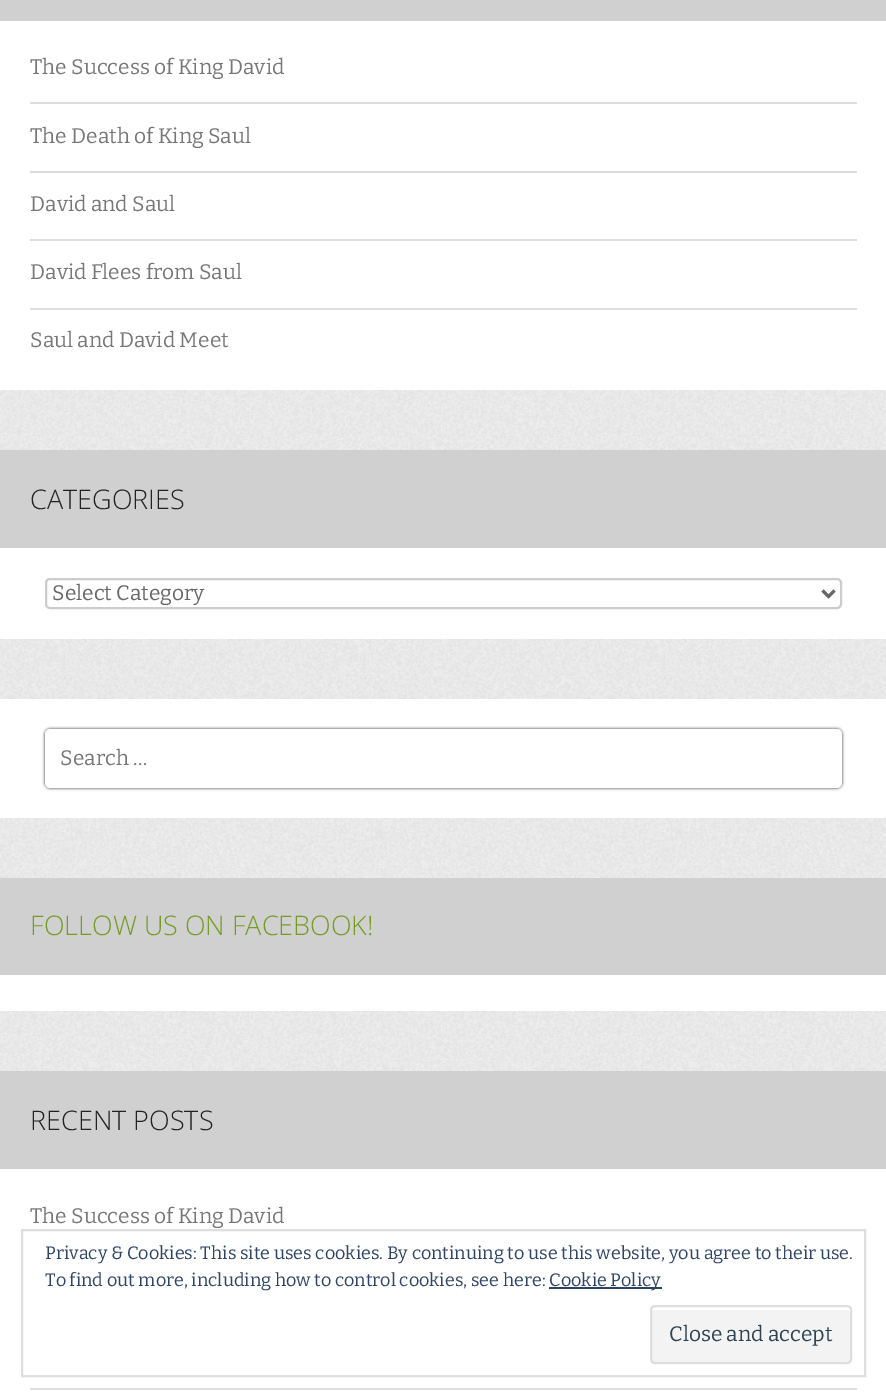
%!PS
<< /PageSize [886 1398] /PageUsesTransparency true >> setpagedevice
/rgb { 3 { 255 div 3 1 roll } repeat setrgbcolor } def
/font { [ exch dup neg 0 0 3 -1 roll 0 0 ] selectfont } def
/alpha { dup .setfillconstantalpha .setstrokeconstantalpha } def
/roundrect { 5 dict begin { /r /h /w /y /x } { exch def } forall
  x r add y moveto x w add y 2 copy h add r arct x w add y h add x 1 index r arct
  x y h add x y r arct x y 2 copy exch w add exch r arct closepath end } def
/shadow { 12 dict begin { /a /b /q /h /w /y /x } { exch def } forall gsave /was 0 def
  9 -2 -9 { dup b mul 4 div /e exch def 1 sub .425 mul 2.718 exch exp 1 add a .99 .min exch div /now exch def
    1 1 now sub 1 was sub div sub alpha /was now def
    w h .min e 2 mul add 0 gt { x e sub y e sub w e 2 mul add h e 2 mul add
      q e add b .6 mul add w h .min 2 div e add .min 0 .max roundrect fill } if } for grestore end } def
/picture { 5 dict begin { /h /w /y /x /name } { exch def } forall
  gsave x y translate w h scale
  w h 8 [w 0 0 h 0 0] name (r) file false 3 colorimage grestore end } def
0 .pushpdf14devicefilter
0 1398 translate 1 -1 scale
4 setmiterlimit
238 238 238 rgb
0 0 886 1398 rectfill
(img/1.rgb) 0 390 886 681 picture
[
  [0 21 886 369 255 255 255]
  [0 0 886 21 208 208 208]
  [30 102 827 2 221 221 221]
  [30 171 827 2 221 221 221]
  [30 239 827 2 221 221 221]
  [30 308 827 2 221 221 221]
  [0 548 886 91 255 255 255]
  [0 450 886 98 208 208 208]
] { aload pop rgb rectfill } forall
204 204 204 rgb
2 setlinewidth
46 579 795 29 4 roundrect stroke
102 102 102 rgb
3 setlinewidth
822.5 590.5 moveto 828.5 596.5 lineto 834.5 590.5 lineto stroke
255 255 255 rgb
0 699 886 119 rectfill
51 51 51 rgb
45 729 797 59 5 1.5 1 shadow
255 255 255 rgb
45 729 797 59 5 roundrect fill
[
  [0 975 886 36 255 255 255]
  [0 878 886 97 208 208 208]
  [0 1169 886 229 255 255 255]
  [0 1071 886 98 208 208 208]
  [30 1388 827 2 221 221 221]
] { aload pop rgb rectfill } forall
222 222 222 rgb
2 setlinewidth
22 1230 843 146 rectstroke
46 68 103 rgb
549 1287 113 2 rectfill
243 243 243 rgb
650 1305 202 59 5 roundrect fill
255 255 255 rgb
654 1310 moveto 848 1310 lineto 849 1310 850 1311 850 1312 curveto 850 1361 lineto 851 1361 851 1360 851 1359 curveto 851 1310 lineto 851 1308 850 1307 848 1307 curveto 654 1307 lineto 652 1307 651 1308 651 1310 curveto 651 1312 lineto 651 1311 652 1310 654 1310 curveto closepath fill
222 222 222 rgb
651 1306 200 57 4 roundrect stroke
/Bitter-Regular 21 font
119 119 119 rgb
[
  [(The Success of King David) 30 74]
  [(The Death of King Saul) 30 143]
  [(David and Saul) 30 211]
  [(David Flees from Saul) 30 279]
  [(Saul and David Meet) 30 347]
] { aload pop moveto show } forall
/OpenSans-Light 27 font
34 34 34 rgb
30 509 moveto (CATEGORIES) show
/Bitter-Regular 21 font
102 102 102 rgb
52 600 moveto (Select Category) show
119 119 119 rgb
60 765 moveto (Search …) show
/OpenSans-Light 27 font
117 155 34 rgb
30 935 moveto (FOLLOW US ON FACEBOOK!) show
34 34 34 rgb
30 1130 moveto (RECENT POSTS) show
/Bitter-Regular 21 font
119 119 119 rgb
30 1223 moveto (The Success of King David) show
/Bitter-Regular 18 font
46 68 103 rgb
[
  [(Privacy & Cookies: This site uses cookies. By continuing to use this website, you agree to their use.) 45 1259]
  [(To find out more, including how to control cookies, see here:) 45 1286]
  [(Cookie Policy) 549 1286]
] { aload pop moveto show } forall
/Bitter-Regular 21 font
46 68 83 rgb
669 1341 moveto (Close and accept) show
.poppdf14devicefilter showpage
